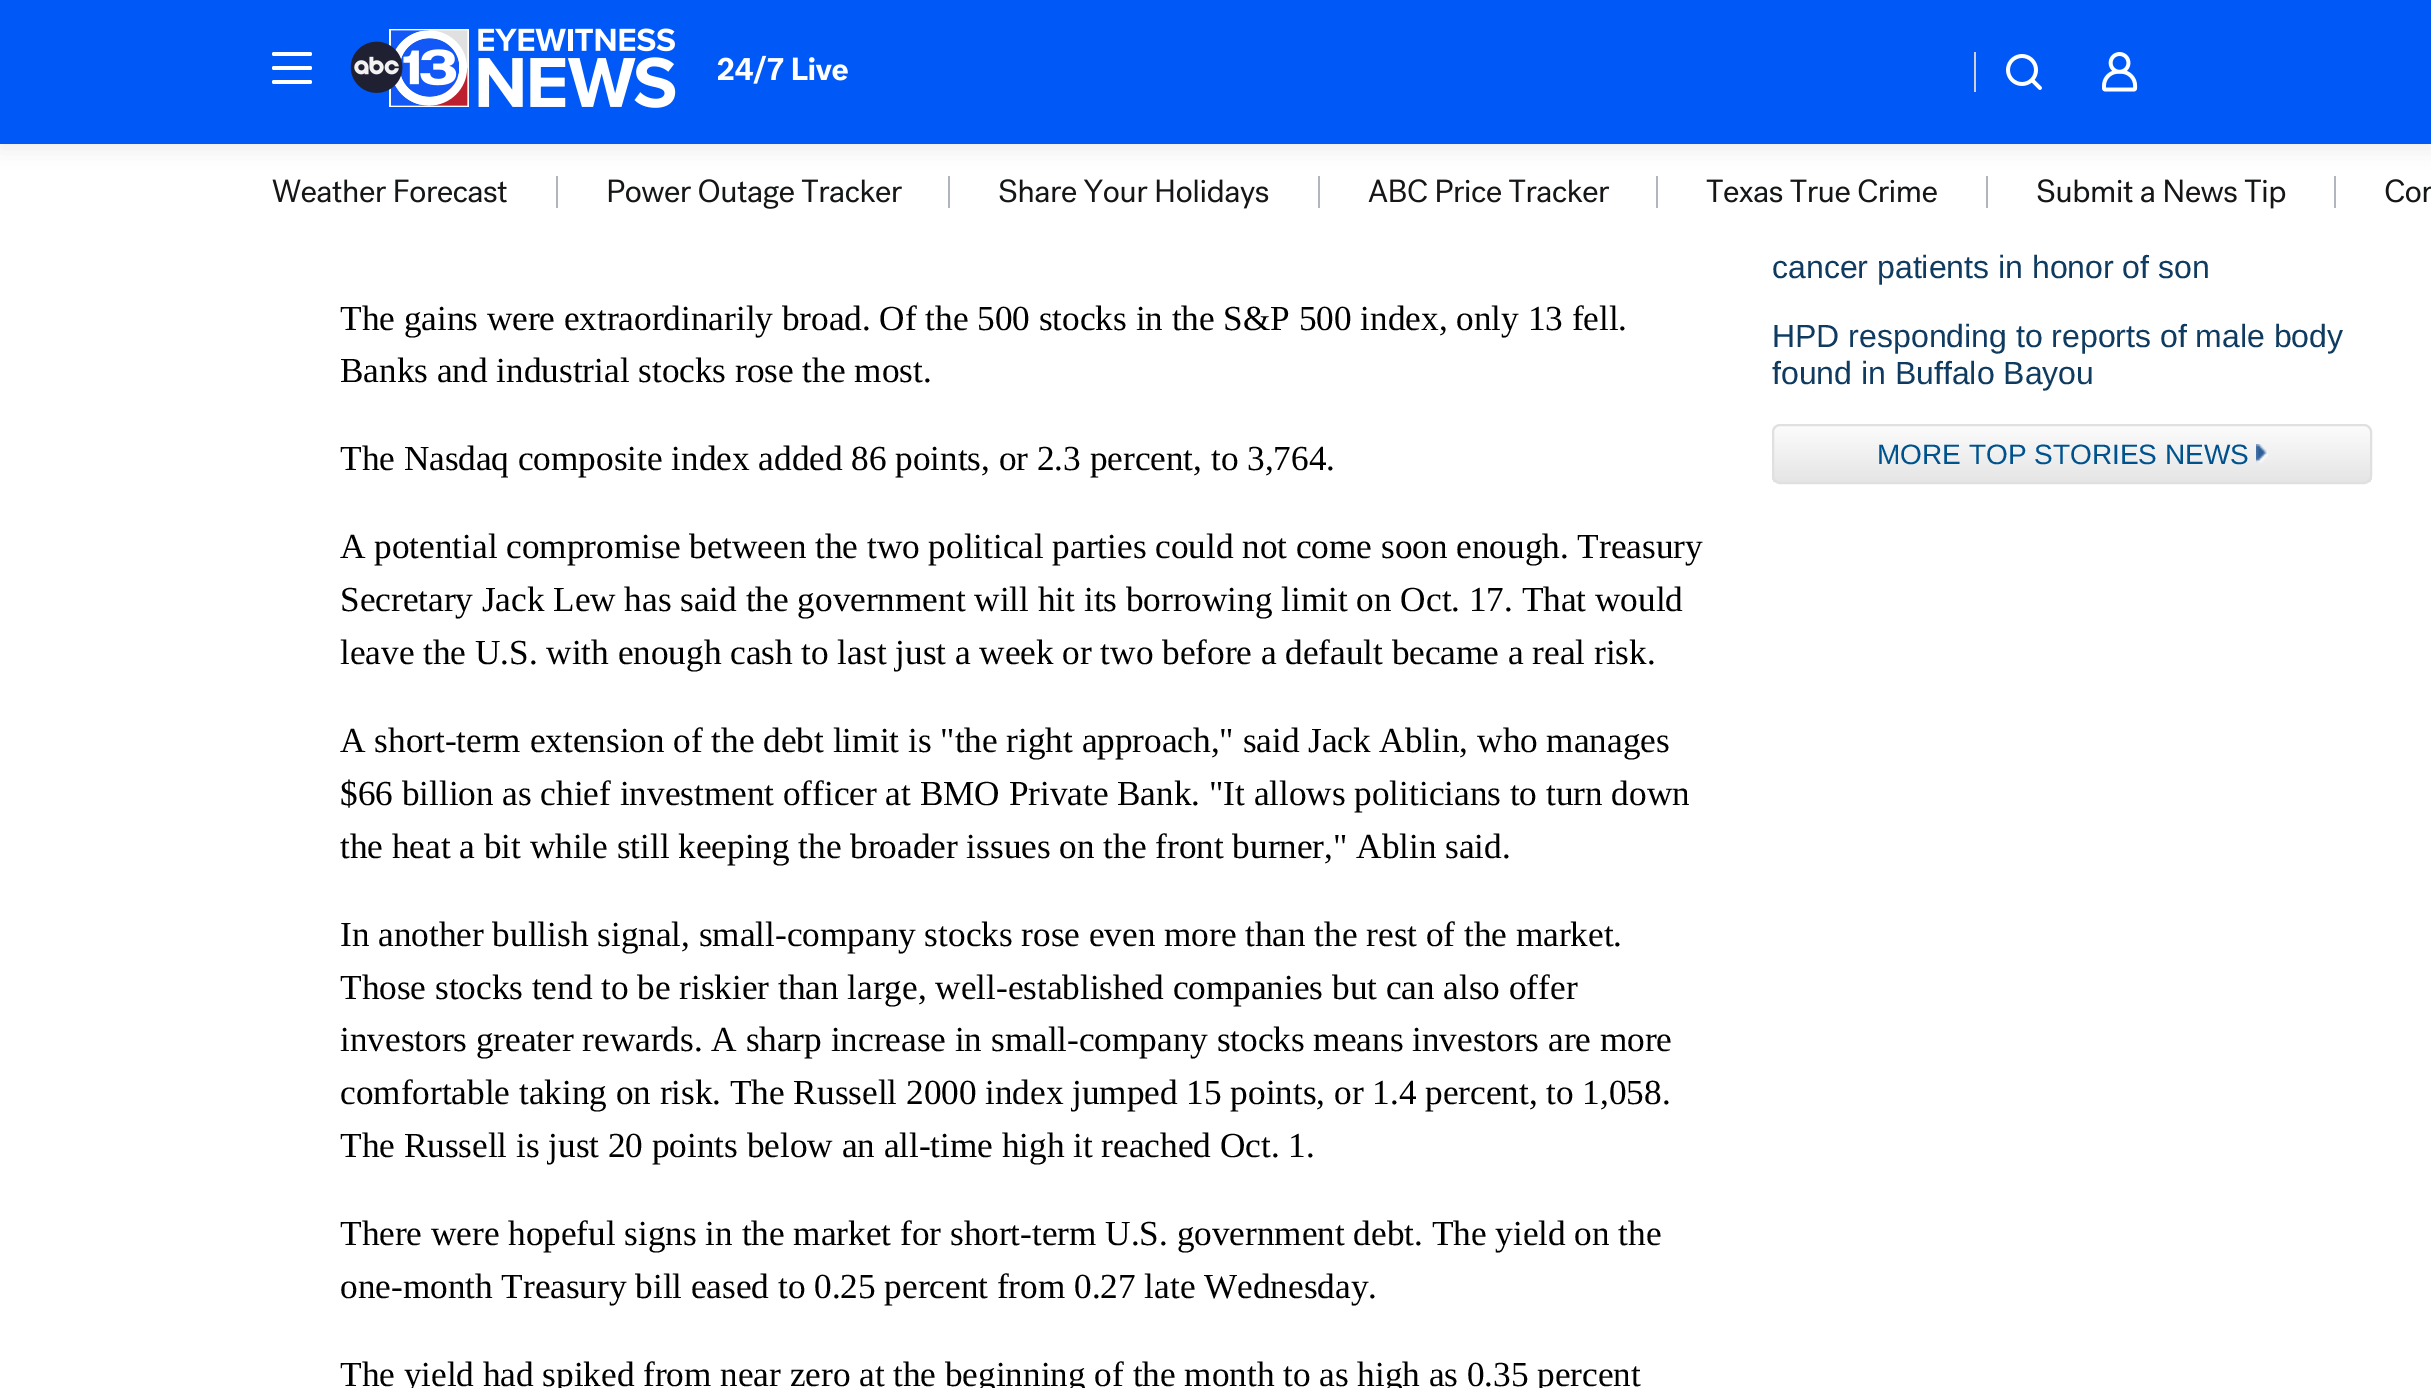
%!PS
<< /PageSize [2431 1388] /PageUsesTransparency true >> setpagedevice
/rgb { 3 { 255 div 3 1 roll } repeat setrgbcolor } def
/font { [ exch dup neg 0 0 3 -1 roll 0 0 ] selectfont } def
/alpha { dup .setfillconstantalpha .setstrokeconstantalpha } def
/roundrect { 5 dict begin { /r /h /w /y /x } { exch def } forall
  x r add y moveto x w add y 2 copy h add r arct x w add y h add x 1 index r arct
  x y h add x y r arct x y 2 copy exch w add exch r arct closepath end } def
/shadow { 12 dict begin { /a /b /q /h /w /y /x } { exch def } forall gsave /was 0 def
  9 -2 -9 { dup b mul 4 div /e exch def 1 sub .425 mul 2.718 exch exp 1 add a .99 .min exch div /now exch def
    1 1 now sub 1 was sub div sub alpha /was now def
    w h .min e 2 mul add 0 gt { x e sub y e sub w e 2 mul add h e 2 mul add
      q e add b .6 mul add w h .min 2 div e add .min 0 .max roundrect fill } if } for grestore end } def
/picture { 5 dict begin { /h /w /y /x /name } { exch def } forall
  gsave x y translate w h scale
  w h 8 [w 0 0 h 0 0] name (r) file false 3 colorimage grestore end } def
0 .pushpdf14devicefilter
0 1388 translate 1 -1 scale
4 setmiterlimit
255 255 255 rgb
0 0 2431 1388 rectfill
[
  [556 176 2 32 176 181 190]
  [948 176 2 32 176 181 190]
  [1318 176 2 32 176 181 190]
  [1656 176 2 32 176 181 190]
  [1986 176 2 32 176 181 190]
  [2334 176 2 32 176 181 190]
] { aload pop rgb rectfill } forall
0 0 0 rgb
0 4 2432 144 0 10 0.08 shadow
0 88 246 rgb
0 0 2431 144 rectfill
255 255 255 rgb
272 66 40 4 2 roundrect fill
272 52 40 4 2 roundrect fill
272 80 40 4 2 roundrect fill
(img/1.rgb) 350 28 326 80 picture
(img/2.rgb) 717 55 131 29 picture
206 207 207 rgb
1974 52 2 40 rectfill
(img/3.rgb) 2006 54 36 36 picture
(img/4.rgb) 2102 52 36 40 picture
(img/5.rgb) 272 179 235 24 picture
(img/6.rgb) 608 179 294 30 picture
(img/7.rgb) 999 179 270 30 picture
(img/8.rgb) 1368 179 242 24 picture
(img/9.rgb) 1706 179 231 24 picture
(img/10.rgb) 2037 179 249 30 picture
(img/11.rgb) 2385 179 46 24 picture
gsave
1772 424 600 60 8 roundrect clip newpath
gsave 1772 426 moveto 2372 426 lineto 2372 482 lineto 1772 482 lineto closepath clip newpath
<< /ShadingType 2 /ColorSpace /DeviceRGB /Coords [2072 426 2072 482] /Extend [true true] /Function << /FunctionType 2 /Domain [0 1] /C0 [0.988 0.988 0.988] /C1 [0.898 0.898 0.898] /N 1 >> >> shfill grestore
grestore
224 224 224 rgb
2 setlinewidth
1773 425 598 58 7 roundrect stroke
(img/12.rgb) 2256 444 12 19 picture
/LiberationSerif-Regular 35.2 font
0 0 0 rgb
[
  [(The gains were extraordinarily broad. Of the 500 stocks in the S&P 500 index, only 13 fell.) 340 330]
  [(Banks and industrial stocks rose the most.) 340 382]
  [(The Nasdaq composite index added 86 points, or 2.3 percent, to 3,764.) 340 470]
  [(A potential compromise between the two political parties could not come soon enough. Treasury) 340 558]
  [(Secretary Jack Lew has said the government will hit its borrowing limit on Oct. 17. That would) 340 611]
  [(leave the U.S. with enough cash to last just a week or two before a default became a real risk.) 340 664]
  [(A short-term extension of the debt limit is "the right approach," said Jack Ablin, who manages) 340 752]
  [($66 billion as chief investment officer at BMO Private Bank. "It allows politicians to turn down) 340 805]
  [(the heat a bit while still keeping the broader issues on the front burner," Ablin said.) 340 858]
  [(In another bullish signal, small-company stocks rose even more than the rest of the market.) 340 946]
  [(Those stocks tend to be riskier than large, well-established companies but can also offer) 340 999]
  [(investors greater rewards. A sharp increase in small-company stocks means investors are more) 340 1051]
  [(comfortable taking on risk. The Russell 2000 index jumped 15 points, or 1.4 percent, to 1,058.) 340 1104]
  [(The Russell is just 20 points below an all-time high it reached Oct. 1.) 340 1157]
  [(There were hopeful signs in the market for short-term U.S. government debt. The yield on the) 340 1245]
  [(one-month Treasury bill eased to 0.25 percent from 0.27 late Wednesday.) 340 1298]
  [(The yield had spiked from near zero at the beginning of the month to as high as 0.35 percent) 340 1386]
] { aload pop moveto show } forall
/LiberationSans-Regular 32 font
16 59 97 rgb
[
  [(cancer patients in honor of son) 1772 278]
  [(HPD responding to reports of male body) 1772 347]
  [(found in Buffalo Bayou) 1772 384]
] { aload pop moveto show } forall
/LiberationSans-Regular 28 font
0 82 141 rgb
1877 464 moveto (MORE TOP STORIES NEWS) show
.poppdf14devicefilter showpage
